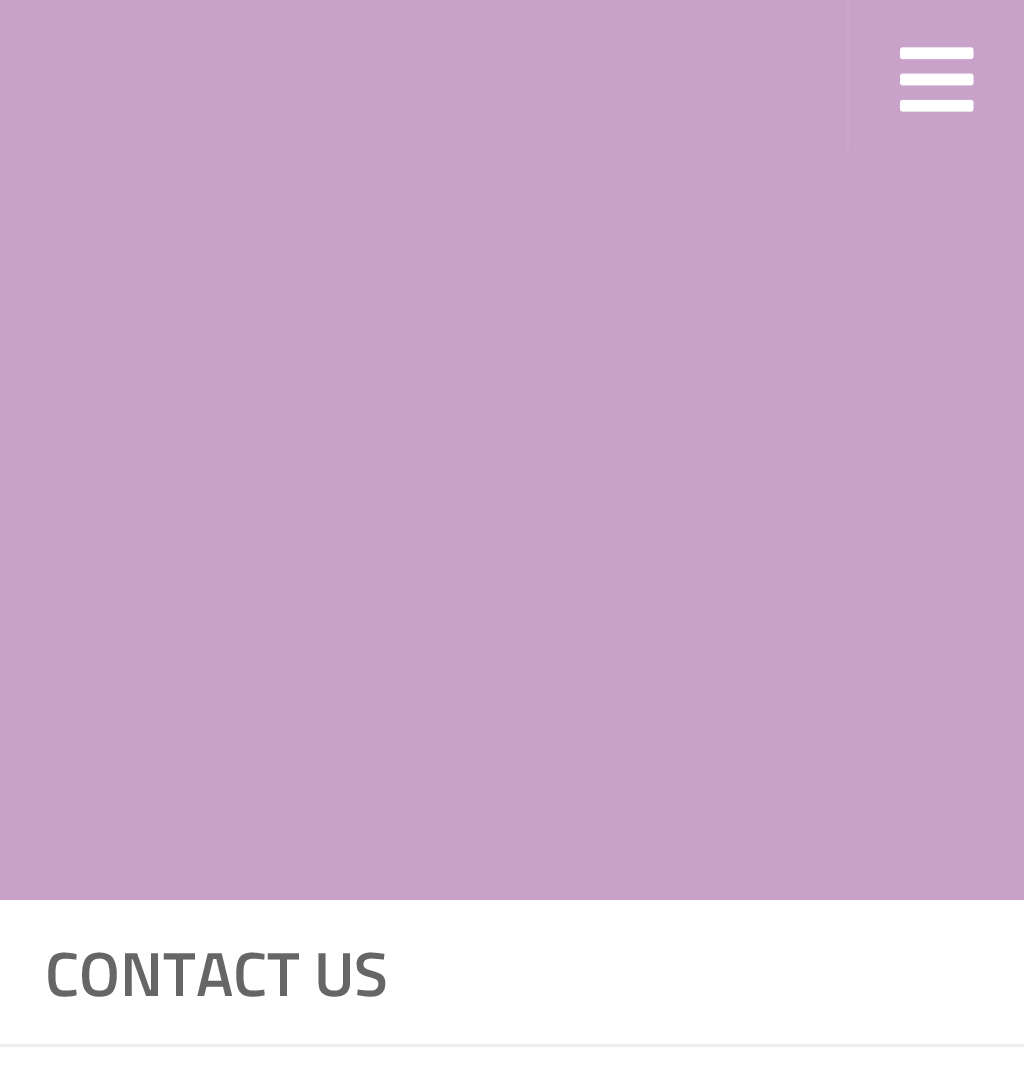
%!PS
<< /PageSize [1024 1078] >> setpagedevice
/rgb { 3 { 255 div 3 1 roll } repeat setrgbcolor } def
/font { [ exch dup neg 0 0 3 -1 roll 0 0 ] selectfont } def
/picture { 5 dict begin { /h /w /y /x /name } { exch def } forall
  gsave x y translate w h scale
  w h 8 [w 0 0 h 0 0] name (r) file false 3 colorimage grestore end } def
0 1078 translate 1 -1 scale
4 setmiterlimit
255 255 255 rgb
0 0 1024 1078 rectfill
200 162 200 rgb
0 0 1024 900 rectfill
203 168 203 rgb
846 0 3 150 rectfill
(img/1.rgb) 900 47 74 65 picture
238 238 238 rgb
0 1044 1024 3 rectfill
/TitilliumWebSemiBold-SemiBold 62.5 font
102 102 102 rgb
45 996 moveto (CONTACT US) show
showpage
